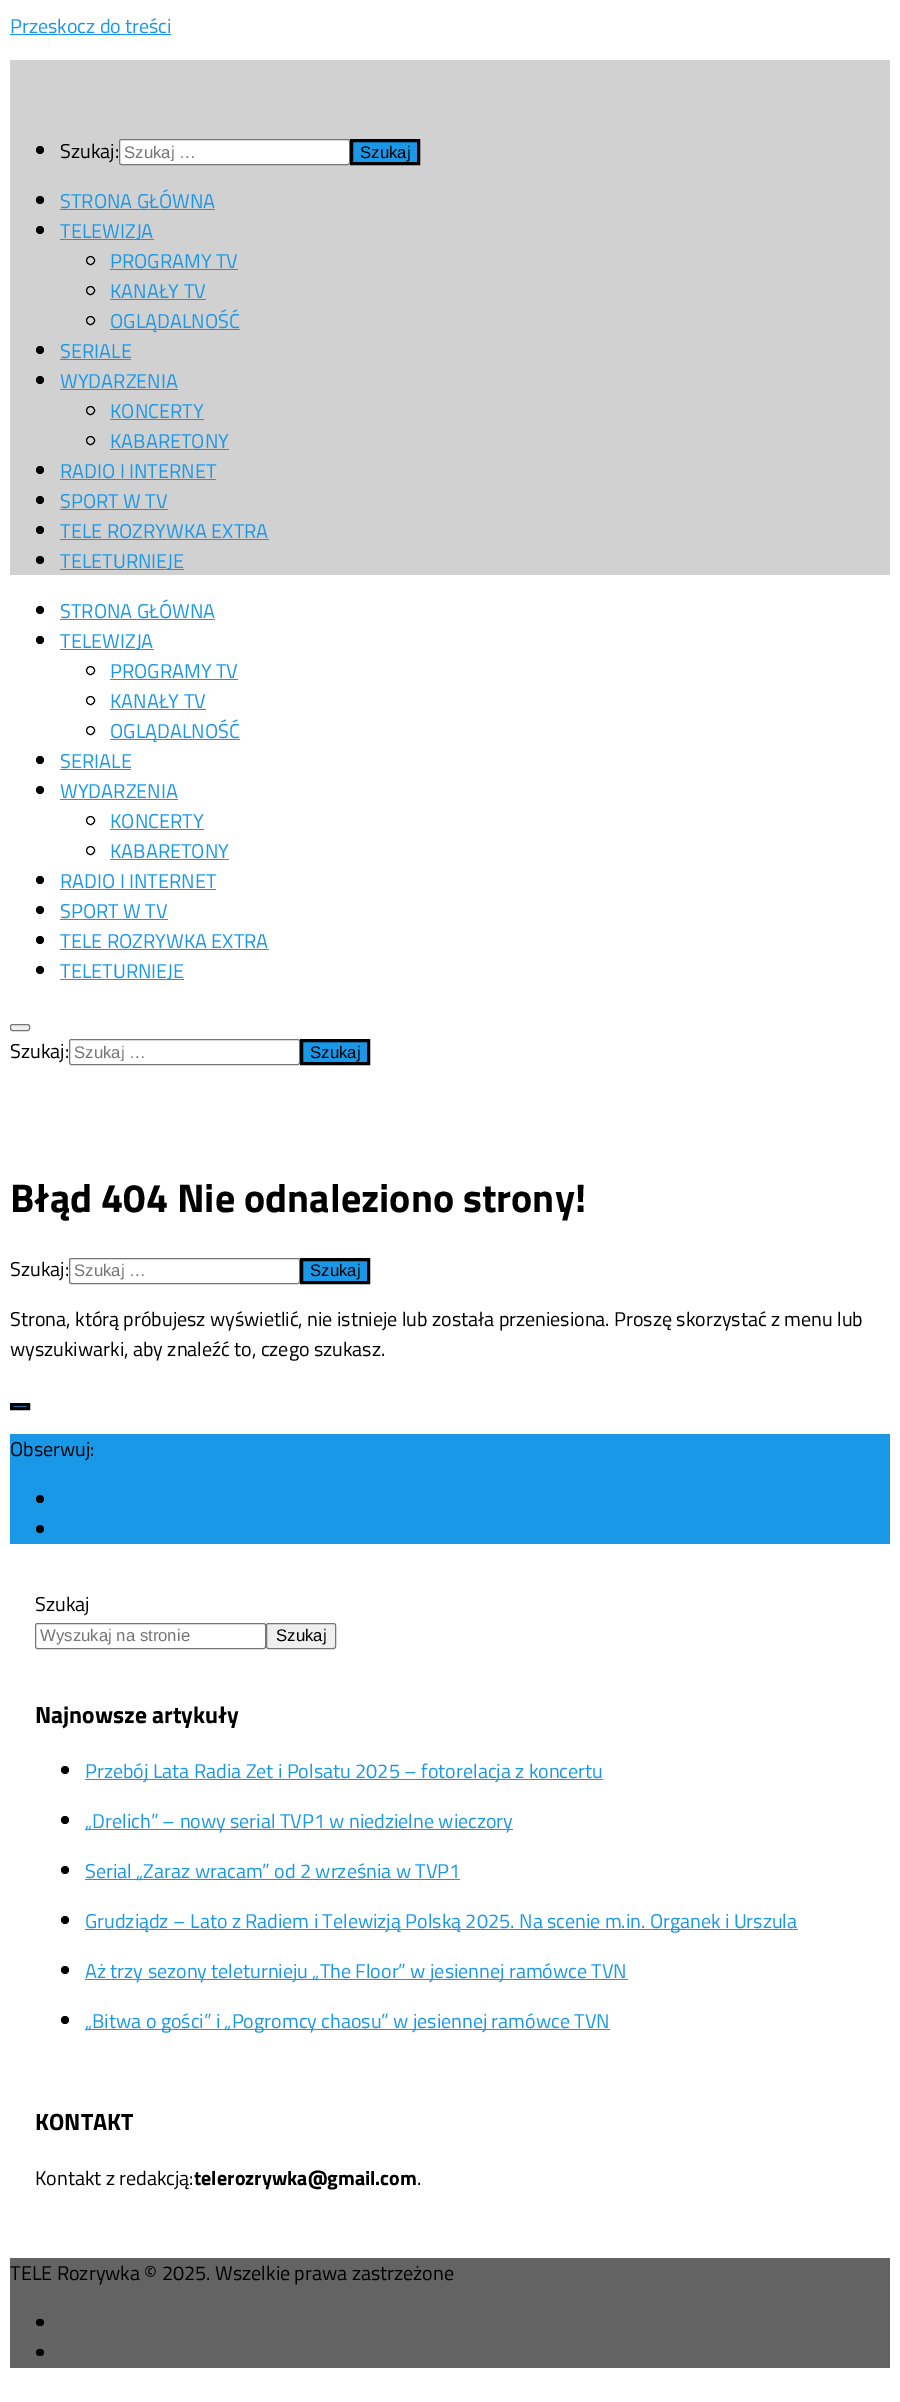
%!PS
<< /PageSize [900 2402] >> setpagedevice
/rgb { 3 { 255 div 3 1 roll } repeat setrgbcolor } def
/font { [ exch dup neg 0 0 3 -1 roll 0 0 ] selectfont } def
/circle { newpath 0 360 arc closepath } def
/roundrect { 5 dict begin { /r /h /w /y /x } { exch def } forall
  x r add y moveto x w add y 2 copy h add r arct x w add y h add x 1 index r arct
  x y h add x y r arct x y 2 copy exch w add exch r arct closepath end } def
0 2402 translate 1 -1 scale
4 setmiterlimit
255 255 255 rgb
0 0 900 2402 rectfill
25 152 232 rgb
10 34 161 1 rectfill
209 209 209 rgb
10 60 880 515 rectfill
0 0 0 rgb
40 150 4 circle fill
255 255 255 rgb
119.5 139.5 230 25 2 roundrect gsave fill grestore
118 118 118 rgb
stroke
25 152 232 rgb
351.5 140.5 moveto 418.5 140.5 lineto 418.5 163.5 lineto 351.5 163.5 lineto closepath gsave fill grestore
0 0 0 rgb
3 setlinewidth
stroke
40 200 4 circle fill
25 152 232 rgb
60 209 155 1 rectfill
0 0 0 rgb
40 230 4 circle fill
25 152 232 rgb
60 239 94 1 rectfill
0 0 0 rgb
1 setlinewidth
90.5 260.5 4 circle stroke
25 152 232 rgb
110 269 128 1 rectfill
0 0 0 rgb
90.5 290.5 4 circle stroke
25 152 232 rgb
110 299 96 1 rectfill
0 0 0 rgb
90.5 320.5 4 circle stroke
25 152 232 rgb
110 329 130 1 rectfill
0 0 0 rgb
40 350 4 circle fill
25 152 232 rgb
60 359 71 1 rectfill
0 0 0 rgb
40 380 4 circle fill
25 152 232 rgb
60 389 118 1 rectfill
0 0 0 rgb
90.5 410.5 4 circle stroke
25 152 232 rgb
110 419 94 1 rectfill
0 0 0 rgb
90.5 440.5 4 circle stroke
25 152 232 rgb
110 449 119 1 rectfill
0 0 0 rgb
40 470 4 circle fill
25 152 232 rgb
60 479 156 1 rectfill
0 0 0 rgb
40 500 4 circle fill
25 152 232 rgb
60 509 108 1 rectfill
0 0 0 rgb
40 530 4 circle fill
25 152 232 rgb
60 539 209 1 rectfill
0 0 0 rgb
40 560 4 circle fill
25 152 232 rgb
60 569 124 1 rectfill
0 0 0 rgb
40 610 4 circle fill
25 152 232 rgb
60 619 155 1 rectfill
0 0 0 rgb
40 640 4 circle fill
25 152 232 rgb
60 649 94 1 rectfill
0 0 0 rgb
90.5 670.5 4 circle stroke
25 152 232 rgb
110 679 128 1 rectfill
0 0 0 rgb
90.5 700.5 4 circle stroke
25 152 232 rgb
110 709 96 1 rectfill
0 0 0 rgb
90.5 730.5 4 circle stroke
25 152 232 rgb
110 739 130 1 rectfill
0 0 0 rgb
40 760 4 circle fill
25 152 232 rgb
60 769 71 1 rectfill
0 0 0 rgb
40 790 4 circle fill
25 152 232 rgb
60 799 118 1 rectfill
0 0 0 rgb
90.5 820.5 4 circle stroke
25 152 232 rgb
110 829 94 1 rectfill
0 0 0 rgb
90.5 850.5 4 circle stroke
25 152 232 rgb
110 859 119 1 rectfill
0 0 0 rgb
40 880 4 circle fill
25 152 232 rgb
60 889 156 1 rectfill
0 0 0 rgb
40 910 4 circle fill
25 152 232 rgb
60 919 108 1 rectfill
0 0 0 rgb
40 940 4 circle fill
25 152 232 rgb
60 949 209 1 rectfill
0 0 0 rgb
40 970 4 circle fill
25 152 232 rgb
60 979 124 1 rectfill
239 239 239 rgb
10.5 1024.5 19 6 2 roundrect gsave fill grestore
118 118 118 rgb
stroke
69.5 1039.5 230 25 2 roundrect stroke
25 152 232 rgb
301.5 1040.5 moveto 368.5 1040.5 lineto 368.5 1063.5 lineto 301.5 1063.5 lineto closepath gsave fill grestore
0 0 0 rgb
3 setlinewidth
stroke
118 118 118 rgb
1 setlinewidth
69.5 1258.5 230 25 2 roundrect stroke
25 152 232 rgb
301.5 1259.5 moveto 368.5 1259.5 lineto 368.5 1282.5 lineto 301.5 1282.5 lineto closepath gsave fill grestore
0 0 0 rgb
3 setlinewidth
stroke
25 152 232 rgb
11.5 1404.5 moveto 28.5 1404.5 lineto 28.5 1408.5 lineto 11.5 1408.5 lineto closepath gsave fill grestore
0 0 0 rgb
stroke
25 152 232 rgb
10 1434 880 110 rectfill
0 0 0 rgb
40 1499 4 circle fill
40 1529 4 circle fill
118 118 118 rgb
1 setlinewidth
35.5 1623.5 230 25 2 roundrect stroke
239 239 239 rgb
266.5 1623.5 69 25 2 roundrect gsave fill grestore
118 118 118 rgb
stroke
0 0 0 rgb
65 1770 4 circle fill
25 152 232 rgb
85 1779 518 1 rectfill
0 0 0 rgb
65 1820 4 circle fill
25 152 232 rgb
85 1829 428 1 rectfill
0 0 0 rgb
65 1870 4 circle fill
25 152 232 rgb
85 1879 375 1 rectfill
0 0 0 rgb
65 1920 4 circle fill
25 152 232 rgb
85 1929 713 1 rectfill
0 0 0 rgb
65 1970 4 circle fill
25 152 232 rgb
85 1979 543 1 rectfill
0 0 0 rgb
65 2020 4 circle fill
25 152 232 rgb
85 2029 525 1 rectfill
99 99 99 rgb
10 2258 880 110 rectfill
0 0 0 rgb
36 2319 8 7 3.5 roundrect fill
36 2349 8 7 3.5 roundrect fill
/TitilliumWeb-Regular 20 font
25 152 232 rgb
10 33 moveto (Przeskocz do treści) show
0 0 0 rgb
60 158 moveto (Szukaj:) show
gsave
124 143 205 18 rectclip
/LiberationSans-Regular 16.75 font
117 117 117 rgb
124 158 moveto (Szukaj …) show
grestore
/LiberationSans-Regular 16.75 font
360 158 moveto (Szukaj) show
/TitilliumWeb-Regular 20 font
25 152 232 rgb
[
  [(STRONA GŁÓWNA) 60 208]
  [(TELEWIZJA) 60 238]
  [(PROGRAMY TV) 110 268]
  [(KANAŁY TV) 110 298]
  [(OGLĄDALNOŚĆ) 110 328]
  [(SERIALE) 60 358]
  [(WYDARZENIA) 60 388]
  [(KONCERTY) 110 418]
  [(KABARETONY) 110 448]
  [(RADIO I INTERNET) 60 478]
  [(SPORT W TV) 60 508]
  [(TELE ROZRYWKA EXTRA) 60 538]
  [(TELETURNIEJE) 60 568]
  [(STRONA GŁÓWNA) 60 618]
  [(TELEWIZJA) 60 648]
  [(PROGRAMY TV) 110 678]
  [(KANAŁY TV) 110 708]
  [(OGLĄDALNOŚĆ) 110 738]
  [(SERIALE) 60 768]
  [(WYDARZENIA) 60 798]
  [(KONCERTY) 110 828]
  [(KABARETONY) 110 858]
  [(RADIO I INTERNET) 60 888]
  [(SPORT W TV) 60 918]
  [(TELE ROZRYWKA EXTRA) 60 948]
  [(TELETURNIEJE) 60 978]
] { aload pop moveto show } forall
0 0 0 rgb
10 1058 moveto (Szukaj:) show
gsave
74 1043 205 18 rectclip
/LiberationSans-Regular 16.75 font
117 117 117 rgb
74 1058 moveto (Szukaj …) show
grestore
/LiberationSans-Regular 16.75 font
310 1058 moveto (Szukaj) show
/TitilliumWeb-Bold 40 font
10 1212 moveto (Błąd 404 Nie odnaleziono strony!) show
/TitilliumWeb-Regular 20 font
10 1276 moveto (Szukaj:) show
/LiberationSans-Regular 16.75 font
117 117 117 rgb
74 1276 moveto (Szukaj …) show
0 0 0 rgb
310 1276 moveto (Szukaj) show
/TitilliumWeb-Regular 20 font
[
  [(Strona, którą próbujesz wyświetlić, nie istnieje lub została przeniesiona. Proszę skorzystać z menu lub) 10 1326]
  [(wyszukiwarki, aby znaleźć to, czego szukasz.) 10 1356]
  [(Obserwuj:) 10 1456]
  [(Szukaj) 35 1611]
] { aload pop moveto show } forall
/LiberationSans-Regular 16.75 font
117 117 117 rgb
40 1641 moveto (Wyszukaj na stronie) show
0 0 0 rgb
276 1641 moveto (Szukaj) show
/TitilliumWeb-Bold 23.5 font
35 1723 moveto (Najnowsze artykuły) show
/TitilliumWeb-Regular 20 font
25 152 232 rgb
[
  [(Przebój Lata Radia Zet i Polsatu 2025 – fotorelacja z koncertu) 85 1778]
  [(„Drelich” – nowy serial TVP1 w niedzielne wieczory) 85 1828]
  [(Serial „Zaraz wracam” od 2 września w TVP1) 85 1878]
  [(Grudziądz – Lato z Radiem i Telewizją Polską 2025. Na scenie m.in. Organek i Urszula) 85 1928]
  [(Aż trzy sezony teleturnieju „The Floor” w jesiennej ramówce TVN) 85 1978]
  [(„Bitwa o gości” i „Pogromcy chaosu” w jesiennej ramówce TVN) 85 2028]
] { aload pop moveto show } forall
/TitilliumWeb-Bold 23.5 font
0 0 0 rgb
35 2130 moveto (KONTAKT) show
/TitilliumWeb-Regular 20 font
35 2185 moveto (Kontakt z redakcją:) show
/TitilliumWeb-Bold 20 font
194 2185 moveto (telerozrywka@gmail.com) show
/TitilliumWeb-Regular 20 font
417 2185 moveto (.) show
10 2280 moveto (TELE Rozrywka © 2025. Wszelkie prawa zastrzeżone) show
showpage
